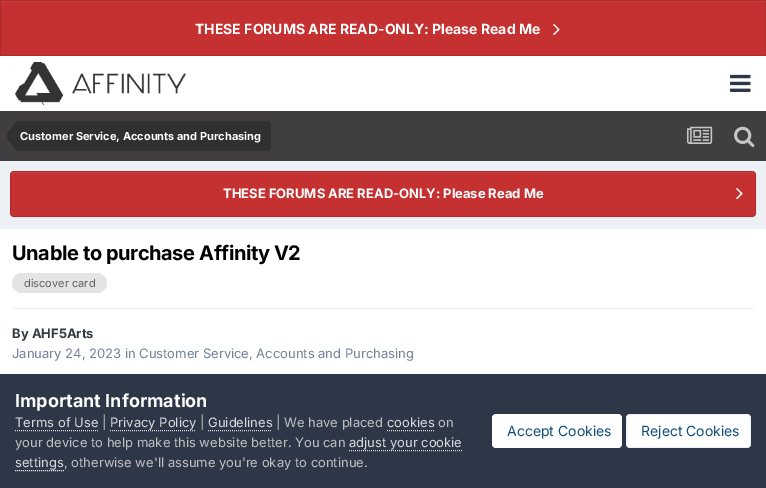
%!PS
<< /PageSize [766 488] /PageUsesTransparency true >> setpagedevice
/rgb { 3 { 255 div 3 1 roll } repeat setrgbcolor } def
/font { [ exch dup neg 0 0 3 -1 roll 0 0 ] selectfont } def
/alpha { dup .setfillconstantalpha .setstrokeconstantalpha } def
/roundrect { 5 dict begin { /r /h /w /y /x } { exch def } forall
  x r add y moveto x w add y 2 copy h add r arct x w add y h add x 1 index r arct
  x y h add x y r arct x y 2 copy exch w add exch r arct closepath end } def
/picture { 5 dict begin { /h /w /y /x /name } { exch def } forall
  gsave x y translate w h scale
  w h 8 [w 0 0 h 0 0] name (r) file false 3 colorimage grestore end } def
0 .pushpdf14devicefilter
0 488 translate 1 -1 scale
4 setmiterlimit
237 240 244 rgb
0 0 766 488 rectfill
197 48 48 rgb
1 2 764 53 rectfill
203 69 69 rgb
1 1 764 1 rectfill
177 43 43 rgb
0.5 0.5 765 55 rectstroke
(img/1.rgb) 553 24 7 12 picture
255 255 255 rgb
0 56 766 55 rectfill
(img/2.rgb) 15 62 171 43 picture
(img/3.rgb) 730 74 21 18 picture
64 62 65 rgb
0 111 766 50 rectfill
48 47 49 rgb
20 121 moveto 266 121 lineto 269 121 271 123 271 126 curveto 271 146 lineto 271 149 269 151 266 151 curveto 20 151 lineto closepath fill
20 136 moveto 20 151 lineto 15.5 151 13.5 146.5 11 143 curveto 9.5 141 7 139 7 136 curveto closepath 20 136 moveto 7 136 lineto 7 133 9.5 131 11 129 curveto 13.5 125.5 15.5 121 20 121 curveto closepath fill
(img/4.rgb) 687 126 26 18 picture
(img/5.rgb) 734 126 21 22 picture
197 48 48 rgb
10 171 746 46 4 roundrect fill
203 69 69 rgb
14 173 moveto 752 173 lineto 754 173 755 174 755 176 curveto 755 174 754 172 752 172 curveto 14 172 lineto 12 172 11 174 11 176 curveto 11 174 12 173 14 173 curveto closepath fill
0.1 alpha
0 0 0 rgb
10.5 171.5 745 45 3.5 roundrect stroke
1 alpha
(img/1.rgb) 736 188 7 12 picture
255 255 255 rgb
0 229 766 145 rectfill
228 228 228 rgb
12 273 95 20 10 roundrect fill
239 239 240 rgb
12 308 742 1 rectfill
45 55 72 rgb
0 374 766 114 rectfill
218 218 218 rgb
[1 1] 0 setdash
15 430.5 moveto 98 430.5 lineto stroke
110 430.5 moveto 196 430.5 lineto stroke
208 430.5 moveto 272 430.5 lineto stroke
387 430.5 moveto 434 430.5 lineto stroke
349 450.5 moveto 462 450.5 lineto stroke
15 470.5 moveto 64 470.5 lineto stroke
255 255 255 rgb
492 414 130 34 4 roundrect fill
626 414 125 34 4 roundrect fill
0.07 alpha
14 76 121 rgb
[] 0 setdash
626.5 414.5 124 33 3.5 roundrect stroke
/Inter-Bold 14 font
1 alpha
255 255 255 rgb
195 34 moveto (THESE FORUMS ARE READ-ONLY: Please Read Me) show
/Inter-Bold 11 font
20 140 moveto (Customer Service, Accounts and Purchasing) show
/Inter-Bold 13 font
223 198 moveto (THESE FORUMS ARE READ-ONLY: Please Read Me) show
/Inter-Bold 20 font
0 0 0 rgb
12 260 moveto -0.4 0 (Unable to purchase Affinity V2) ashow
/Inter-Regular 11 font
96 96 96 rgb
24 287 moveto (discover card) show
/Inter-Bold 13 font
53 60 65 rgb
12 338 moveto (By AHF5Arts) show
/Inter-Regular 13 font
113 128 150 rgb
12 358 moveto (January 24, 2023 in Customer Service, Accounts and Purchasing) show
/Inter-Bold 18 font
255 255 255 rgb
15 407 moveto (Important Information) show
/Inter-Regular 13 font
218 218 218 rgb
15 427 moveto (Terms of Use) show
192 192 192 rgb
102 427 moveto (|) show
218 218 218 rgb
110 427 moveto (Privacy Policy) show
192 192 192 rgb
200 427 moveto (|) show
218 218 218 rgb
208 427 moveto (Guidelines) show
192 192 192 rgb
276 427 moveto (| We have placed) show
218 218 218 rgb
387 427 moveto (cookies) show
192 192 192 rgb
438 427 moveto (on) show
15 447 moveto (your device to help make this website better. You can) show
218 218 218 rgb
349 447 moveto (adjust your cookie) show
15 467 moveto (settings) show
192 192 192 rgb
64 467 moveto (, otherwise we'll assume you're okay to continue.) show
/Inter-Regular 14 font
14 76 121 rgb
507 436 moveto (Accept Cookies) show
641 436 moveto (Reject Cookies) show
.poppdf14devicefilter showpage
